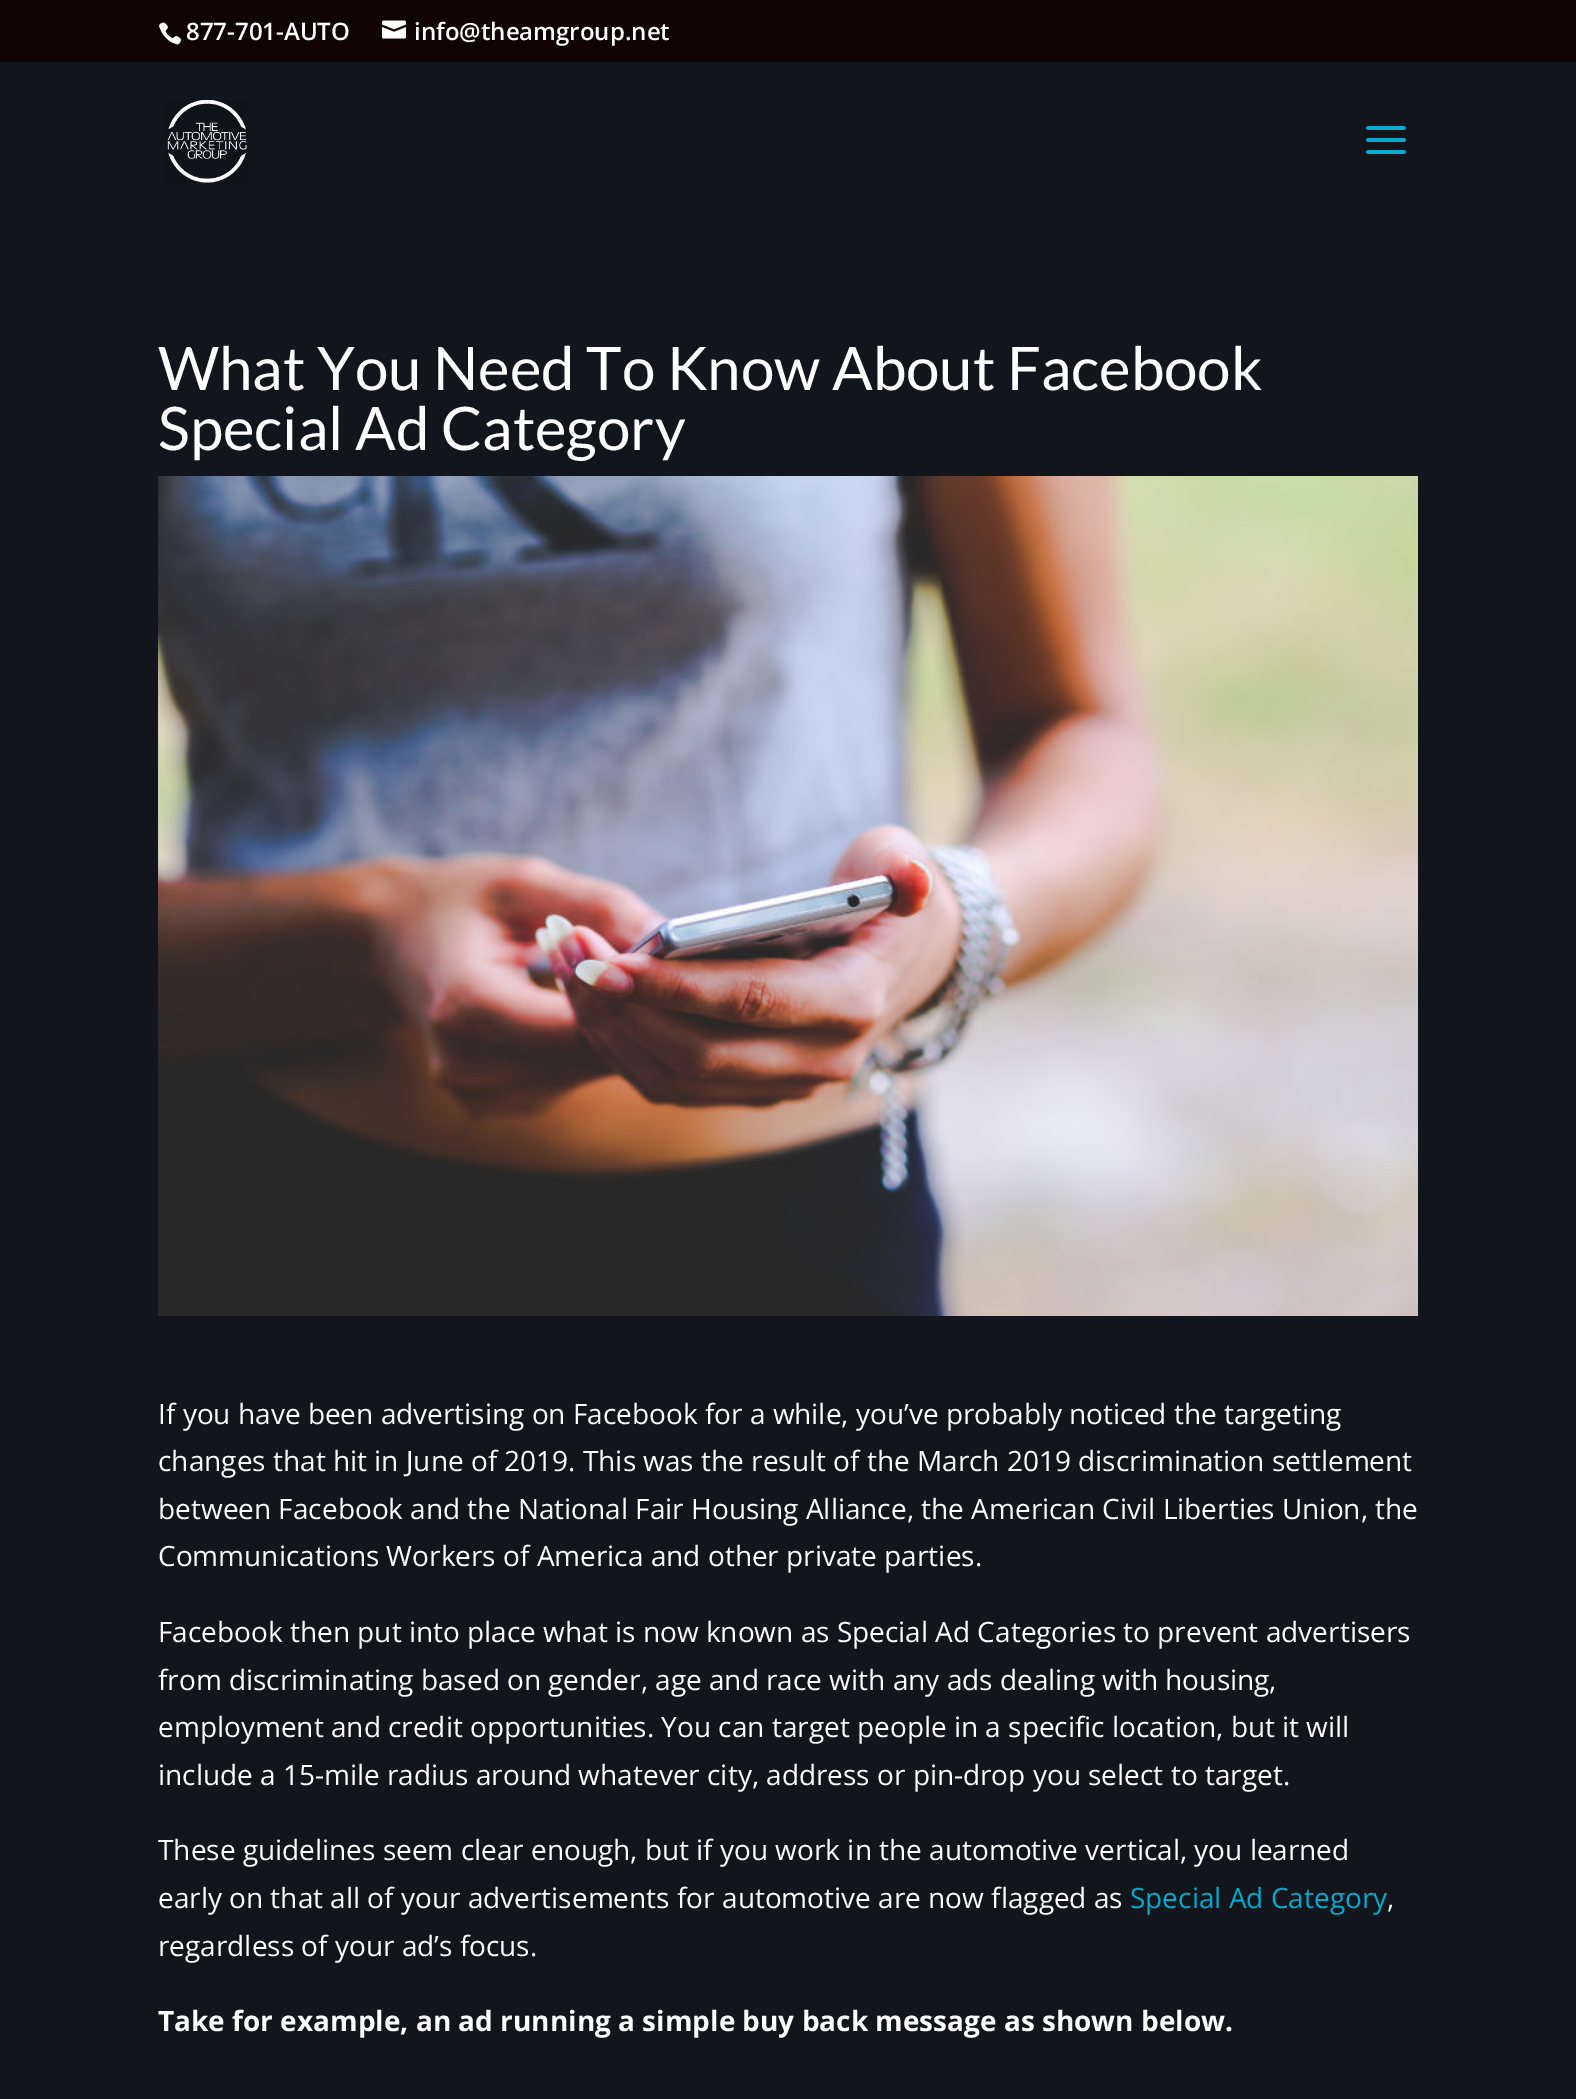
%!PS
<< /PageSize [1576 2099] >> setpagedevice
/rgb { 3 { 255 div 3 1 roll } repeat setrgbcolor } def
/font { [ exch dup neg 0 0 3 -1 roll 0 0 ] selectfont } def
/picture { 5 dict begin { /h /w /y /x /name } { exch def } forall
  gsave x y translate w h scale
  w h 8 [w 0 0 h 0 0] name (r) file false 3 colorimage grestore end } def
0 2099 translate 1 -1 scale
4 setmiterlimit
19 21 28 rgb
0 0 1576 2099 rectfill
17 3 5 rgb
0 0 1576 62 rectfill
(img/1.rgb) 159 22 22 23 picture
(img/2.rgb) 382 20 24 19 picture
(img/3.rgb) 167 100 80 83 picture
(img/4.rgb) 1366 126 40 28 picture
(img/5.rgb) 158 476 1260 840 picture
/OpenSans-SemiBold 24 font
255 255 255 rgb
186 40 moveto (877-701-AUTO) show
414 40 moveto (info@theamgroup.net) show
/Lato-Regular 60 font
158 390 moveto (What You Need To Know About Facebook) show
158 450 moveto (Special Ad Category) show
/OpenSans-Regular 28 font
[
  [(If you have been advertising on Facebook for a while, you’ve probably noticed the targeting) 158 1424]
  [(changes that hit in June of 2019. This was the result of the March 2019 discrimination settlement) 158 1471]
  [(between Facebook and the National Fair Housing Alliance, the American Civil Liberties Union, the) 158 1519]
  [(Communications Workers of America and other private parties.) 158 1566]
  [(Facebook then put into place what is now known as Special Ad Categories to prevent advertisers) 158 1642]
  [(from discriminating based on gender, age and race with any ads dealing with housing,) 158 1690]
  [(employment and credit opportunities. You can target people in a specific location, but it will) 158 1737]
  [(include a 15-mile radius around whatever city, address or pin-drop you select to target.) 158 1785]
  [(These guidelines seem clear enough, but if you work in the automotive vertical, you learned) 158 1860]
  [(early on that all of your advertisements for automotive are now flagged as) 158 1908]
] { aload pop moveto show } forall
1 171 206 rgb
1130 1908 moveto (Special Ad Category) show
255 255 255 rgb
1387 1908 moveto (,) show
158 1956 moveto (regardless of your ad’s focus.) show
/OpenSans-Bold 28 font
158 2031 moveto (Take for example, an ad running a simple buy back message as shown below.) show
showpage
